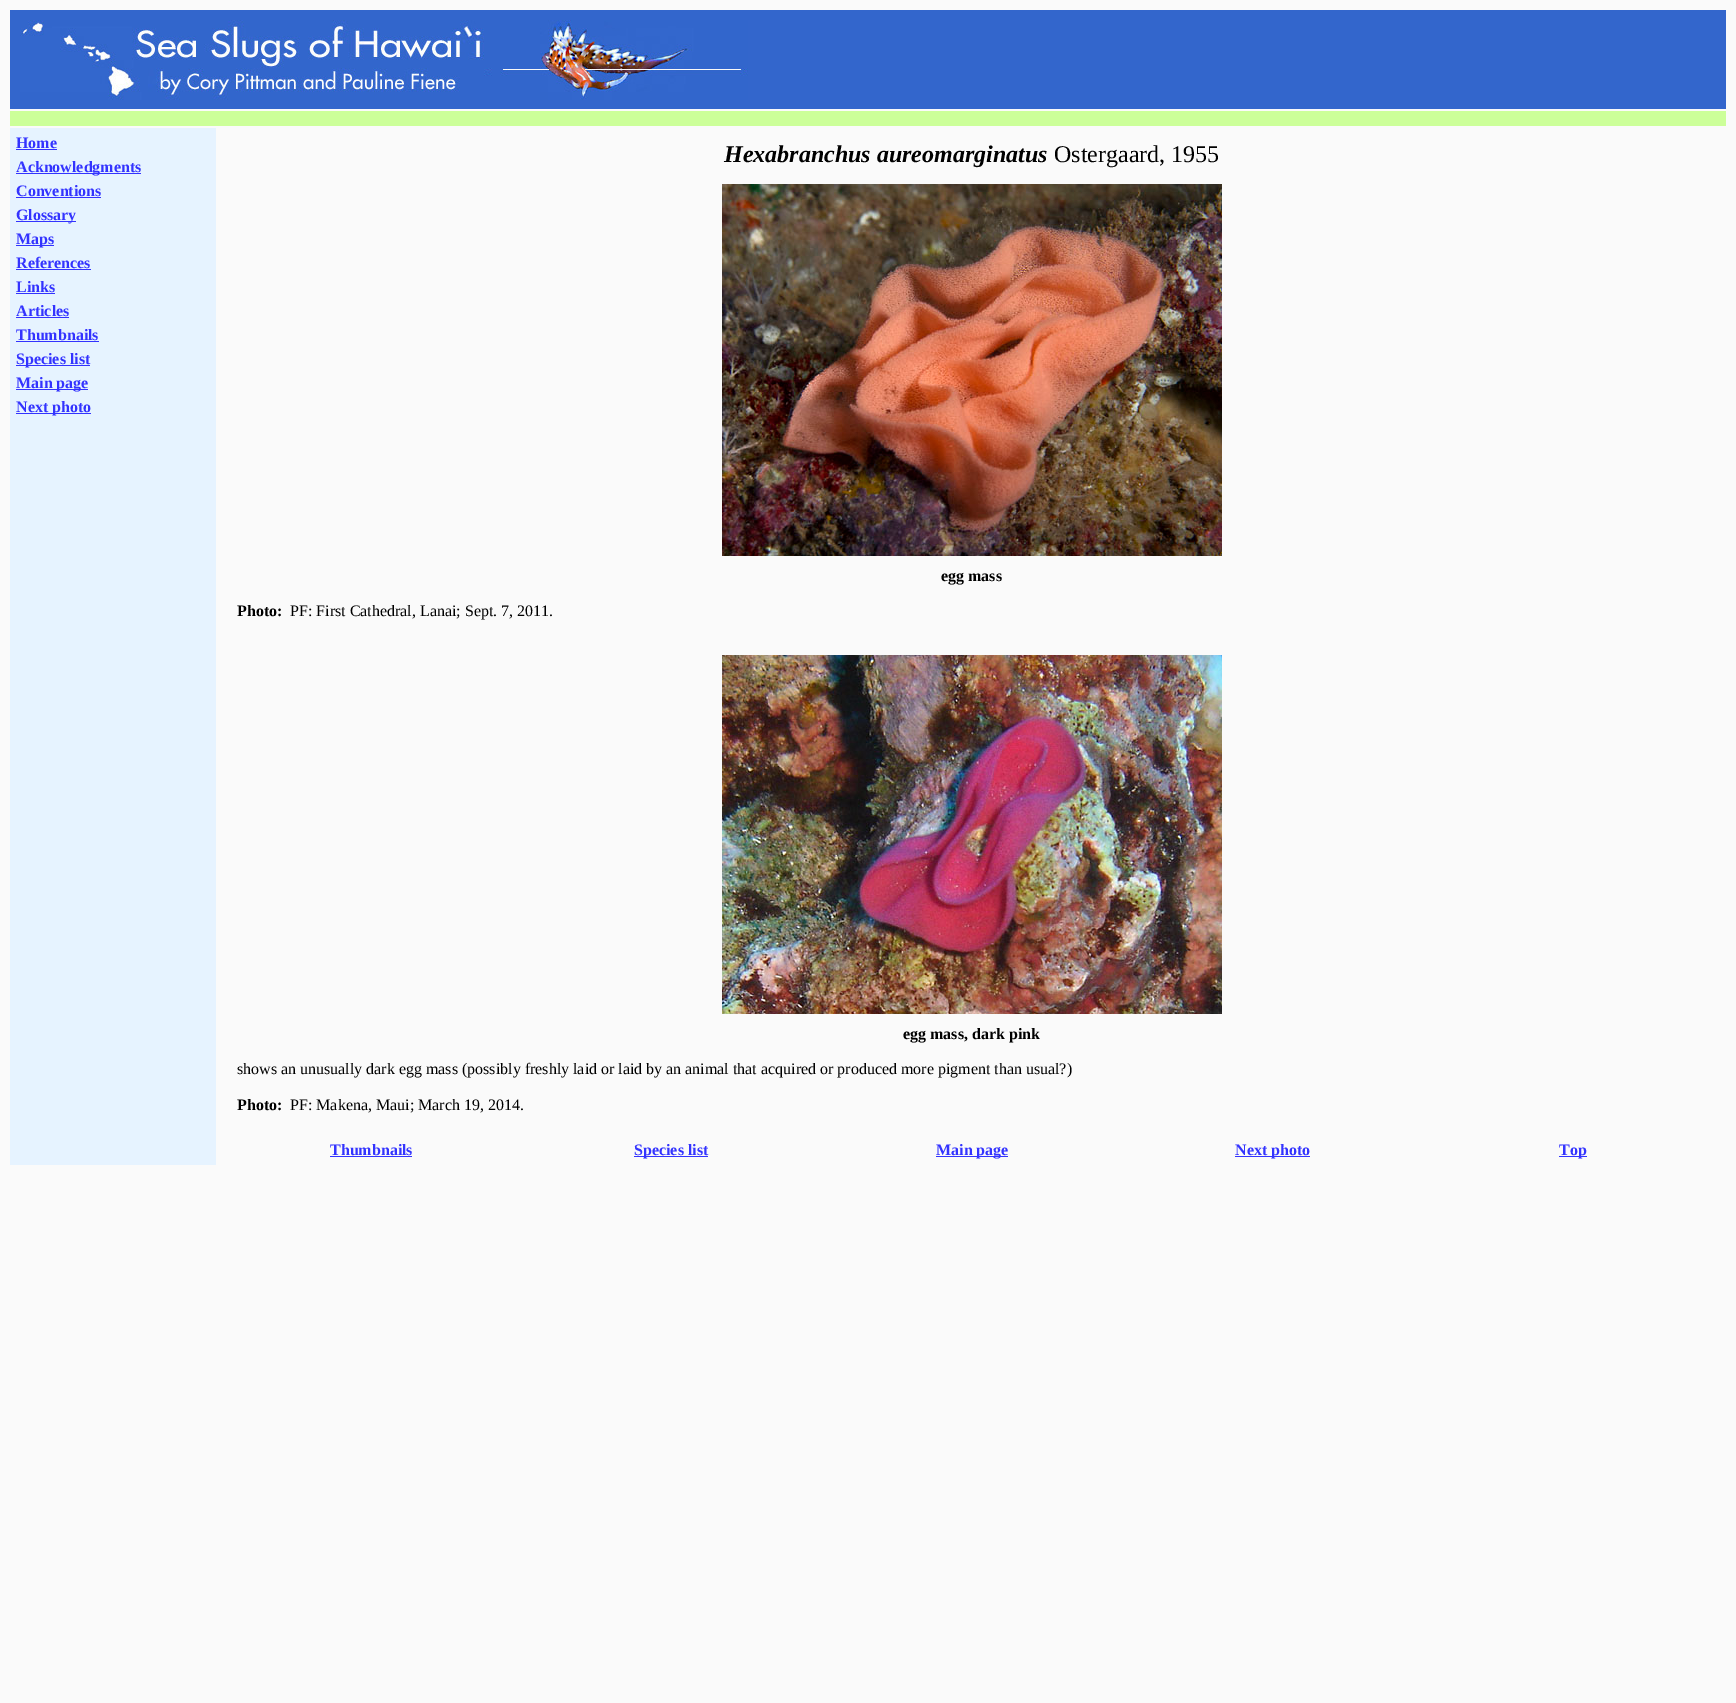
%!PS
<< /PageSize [1736 1703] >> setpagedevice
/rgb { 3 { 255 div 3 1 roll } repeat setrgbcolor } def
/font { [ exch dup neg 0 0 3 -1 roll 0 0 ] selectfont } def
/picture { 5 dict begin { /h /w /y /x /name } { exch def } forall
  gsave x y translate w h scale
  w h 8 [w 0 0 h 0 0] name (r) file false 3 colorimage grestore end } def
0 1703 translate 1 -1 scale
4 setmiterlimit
250 250 250 rgb
0 0 1736 1703 rectfill
51 102 204 rgb
10 10 1716 99 rectfill
(img/1.rgb) 20 20 728 80 picture
[
  [10 111 1716 15 204 255 153]
  [10 128 206 1037 230 243 255]
  [16 149 41 1 51 51 255]
  [16 173 125 1 51 51 255]
  [16 197 85 1 51 51 255]
  [16 221 60 1 51 51 255]
  [16 245 38 1 51 51 255]
  [16 269 75 1 51 51 255]
  [16 293 39 1 51 51 255]
  [16 317 53 1 51 51 255]
  [16 341 83 1 51 51 255]
  [16 365 74 1 51 51 255]
  [16 389 72 1 51 51 255]
  [16 413 75 1 51 51 255]
] { aload pop rgb rectfill } forall
(img/2.rgb) 722 184 500 372 picture
(img/3.rgb) 722 655 500 359 picture
[
  [330 1156 82 1 51 51 255]
  [634 1156 74 1 51 51 255]
  [936 1156 72 1 51 51 255]
  [1235 1156 75 1 51 51 255]
  [1559 1156 28 1 51 51 255]
] { aload pop rgb rectfill } forall
/LiberationSerif-Bold 16 font
[
  [(Home) 16 148]
  [(Acknowledgments) 16 172]
  [(Conventions) 16 196]
  [(Glossary) 16 220]
  [(Maps) 16 244]
  [(References) 16 268]
  [(Links) 16 292]
  [(Articles) 16 316]
  [(Thumbnails) 16 340]
  [(Species list) 16 364]
  [(Main page) 16 388]
  [(Next photo) 16 412]
] { aload pop moveto show } forall
/LiberationSerif-BoldItalic 24 font
0 0 0 rgb
724 162 moveto (Hexabranchus aureomarginatus) show
/LiberationSerif-Regular 24 font
1054 162 moveto (Ostergaard, 1955) show
/LiberationSerif-Bold 16 font
941 581 moveto (egg mass) show
237 616 moveto (Photo:) show
/LiberationSerif-Regular 16 font
290 616 moveto (PF: First Cathedral, Lanai; Sept. 7, 2011.) show
/LiberationSerif-Bold 16 font
903 1039 moveto (egg mass, dark pink) show
/LiberationSerif-Regular 16 font
237 1074 moveto (shows an unusually dark egg mass \(possibly freshly laid or laid by an animal that acquired or produced more pigment than usual?\)) show
/LiberationSerif-Bold 16 font
237 1110 moveto (Photo:) show
/LiberationSerif-Regular 16 font
290 1110 moveto (PF: Makena, Maui; March 19, 2014.) show
/LiberationSerif-Bold 16 font
51 51 255 rgb
[
  [(Thumbnails) 330 1155]
  [(Species list) 634 1155]
  [(Main page) 936 1155]
  [(Next photo) 1235 1155]
  [(Top) 1559 1155]
] { aload pop moveto show } forall
showpage
